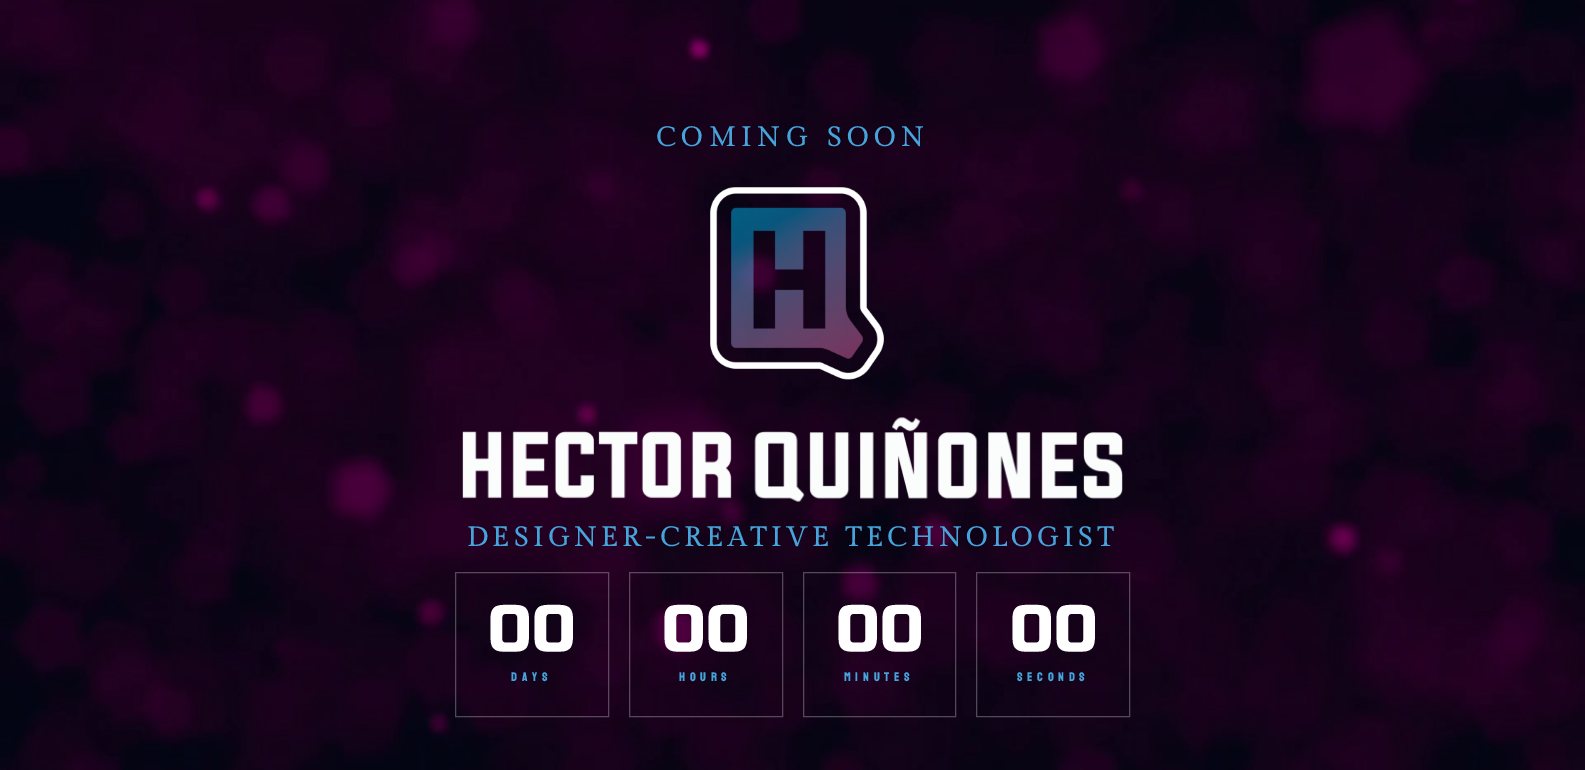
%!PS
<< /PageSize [1585 770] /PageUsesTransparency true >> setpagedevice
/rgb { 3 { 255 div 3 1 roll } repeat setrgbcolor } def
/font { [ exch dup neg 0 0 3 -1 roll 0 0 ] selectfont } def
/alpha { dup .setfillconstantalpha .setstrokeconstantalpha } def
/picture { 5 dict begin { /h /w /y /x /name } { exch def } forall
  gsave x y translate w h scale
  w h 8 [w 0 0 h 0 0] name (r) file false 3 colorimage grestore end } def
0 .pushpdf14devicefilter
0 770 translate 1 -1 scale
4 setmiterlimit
255 255 255 rgb
0 0 1585 770 rectfill
(img/1.rgb) 0 0 1585 770 picture
(img/2.rgb) 710 187 174 193 picture
(img/3.rgb) 462 417 661 85 picture
0.28 alpha
455.5 572.5 153 144 rectstroke
629.5 572.5 153 144 rectstroke
803.5 572.5 152 144 rectstroke
976.5 572.5 153 144 rectstroke
/GildaDisplay-Bold 27 font
1 alpha
71 164 219 rgb
656 146 moveto 6.25 0 (COMING SOON) ashow
467 546 moveto 4.8 0 (DESIGNER-CREATIVE TECHNOLOGIST) ashow
/RussoOne-Regular 65 font
255 255 255 rgb
488 651 moveto (00) show
/Bayon-Bold 12 font
71 164 219 rgb
511 681 moveto 5 0 (DAYS) ashow
/RussoOne-Regular 65 font
255 255 255 rgb
662 651 moveto (00) show
/Bayon-Bold 12 font
71 164 219 rgb
679 681 moveto 5 0 (HOURS) ashow
/RussoOne-Regular 65 font
255 255 255 rgb
836 651 moveto (00) show
/Bayon-Bold 12 font
71 164 219 rgb
844 681 moveto 5 0 (MINUTES) ashow
/RussoOne-Regular 65 font
255 255 255 rgb
1010 651 moveto (00) show
/Bayon-Bold 12 font
71 164 219 rgb
1017 681 moveto 5 0 (SECONDS) ashow
.poppdf14devicefilter showpage
